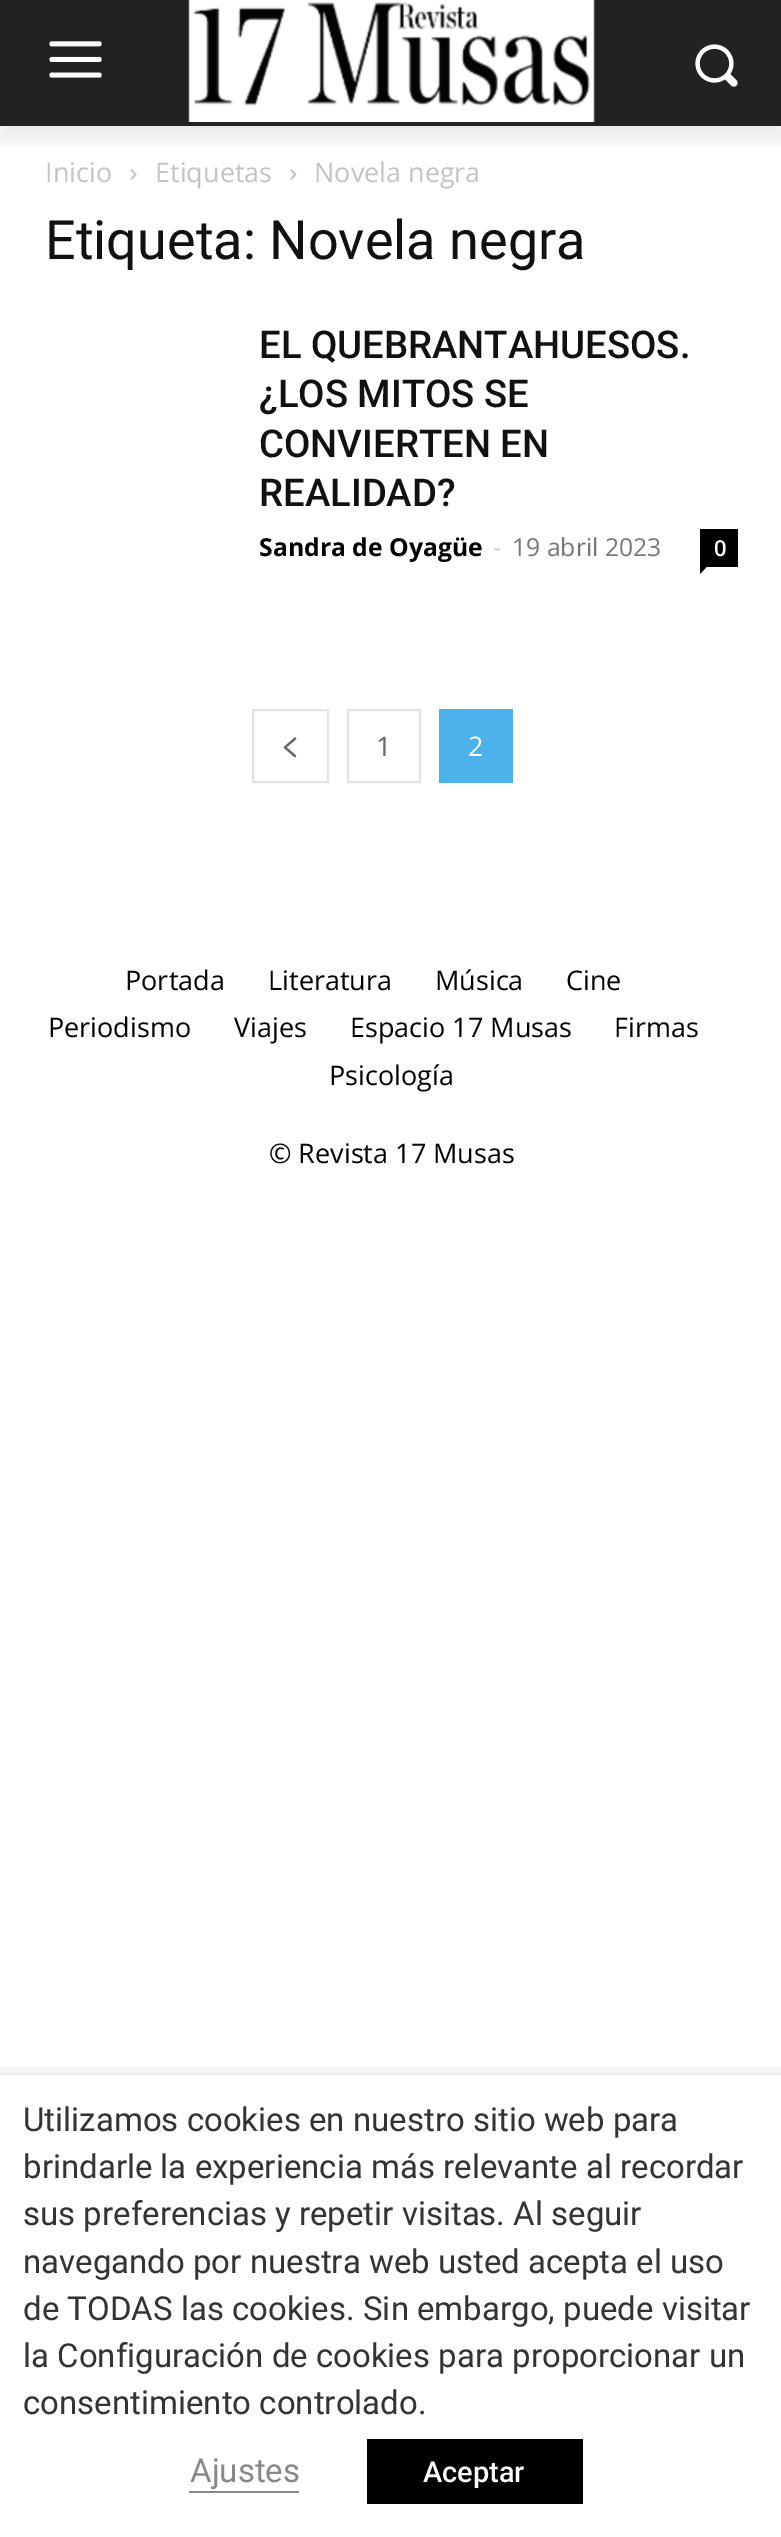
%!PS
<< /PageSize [781 2537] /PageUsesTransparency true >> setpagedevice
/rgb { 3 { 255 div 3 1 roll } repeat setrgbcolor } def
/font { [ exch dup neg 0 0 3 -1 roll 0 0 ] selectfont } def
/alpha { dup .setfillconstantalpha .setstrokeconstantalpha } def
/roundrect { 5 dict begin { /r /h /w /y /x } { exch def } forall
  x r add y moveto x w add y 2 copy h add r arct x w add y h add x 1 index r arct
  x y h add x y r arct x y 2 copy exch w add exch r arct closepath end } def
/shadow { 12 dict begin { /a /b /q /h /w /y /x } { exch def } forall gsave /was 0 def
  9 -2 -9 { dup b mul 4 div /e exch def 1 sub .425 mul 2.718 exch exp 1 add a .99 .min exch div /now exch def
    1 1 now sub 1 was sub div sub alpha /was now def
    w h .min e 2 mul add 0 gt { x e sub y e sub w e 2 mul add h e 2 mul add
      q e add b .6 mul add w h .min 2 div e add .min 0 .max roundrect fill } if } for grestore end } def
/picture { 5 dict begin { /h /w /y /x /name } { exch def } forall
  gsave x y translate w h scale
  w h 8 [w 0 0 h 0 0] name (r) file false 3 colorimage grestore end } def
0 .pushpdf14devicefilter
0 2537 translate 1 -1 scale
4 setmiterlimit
255 255 255 rgb
0 0 781 2537 rectfill
34 34 34 rgb
0 0 781 126 rectfill
(img/1.rgb) 49 41 53 37 picture
(img/2.rgb) 188 0 407 122 picture
(img/3.rgb) 695 44 43 43 picture
gsave
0 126 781 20 rectclip
0 0 0 rgb
0 14 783 126 0 9 0.08 shadow
grestore
(img/4.rgb) 130 169 7 11 picture
(img/5.rgb) 290 169 7 11 picture
0 0 0 rgb
700 529 38 38 rectfill
700 567 moveto 706.5 567 lineto 700 574 lineto closepath fill
227 227 227 rgb
2 setlinewidth
253 710 75 72 rectstroke
(img/6.rgb) 283 737 14 21 picture
348 710 72 72 rectstroke
77 178 236 rgb
439 709 74 74 rectfill
gsave
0 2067 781 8 rectclip
0 0 0 rgb
0 2086 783 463 0 11 0.5 shadow
grestore
137 136 136 rgb
189 2491 110 2 rectfill
0 0 0 rgb
367 2439 216 65 rectfill
/OpenSans-Regular 27 font
195 195 195 rgb
[
  [(Inicio) 45 182]
  [(Etiquetas) 155 182]
  [(Novela negra) 314 182]
] { aload pop moveto show } forall
/Roboto-Regular 54 font
17 17 17 rgb
45 259 moveto (Etiqueta: Novela negra) show
/Roboto-Medium 38.25 font
[
  [(EL QUEBRANTAHUESOS.) 259 358]
  [(¿LOS MITOS SE) 259 407]
  [(CONVIERTEN EN) 259 457]
  [(REALIDAD?) 259 506]
] { aload pop moveto show } forall
/OpenSans-Bold 24.75 font
0 0 0 rgb
259 556 moveto (Sandra de Oyagüe) show
/OpenSans-Regular 24.75 font
204 204 204 rgb
493 556 moveto (-) show
118 118 118 rgb
512 556 moveto (19 abril 2023) show
/OpenSans-SemiBold 22 font
255 255 255 rgb
714 556 moveto (0) show
/OpenSans-Regular 27 font
102 102 102 rgb
376 756 moveto (1) show
255 255 255 rgb
468 756 moveto (2) show
0 0 0 rgb
[
  [(Portada) 125 990]
  [(Literatura) 268 990]
  [(Música) 435 990]
  [(Cine) 566 990]
  [(Periodismo) 48 1037]
  [(Viajes) 234 1037]
  [(Espacio 17 Musas) 350 1037]
  [(Firmas) 614 1037]
  [(Psicología) 329 1085]
  [(© Revista 17 Musas) 269 1163]
] { aload pop moveto show } forall
/Roboto-Regular 33 font
51 51 51 rgb
[
  [(Utilizamos cookies en nuestro sitio web para) 23 2131]
  [(brindarle la experiencia más relevante al recordar) 23 2178]
  [(sus preferencias y repetir visitas. Al seguir) 23 2225]
  [(navegando por nuestra web usted acepta el uso) 23 2273]
  [(de TODAS las cookies. Sin embargo, puede visitar) 23 2320]
  [(la Configuración de cookies para proporcionar un) 23 2367]
  [(consentimiento controlado.) 23 2414]
] { aload pop moveto show } forall
137 136 136 rgb
190 2482 moveto (Ajustes) show
/Roboto-Medium 29 font
255 255 255 rgb
423 2482 moveto (Aceptar) show
.poppdf14devicefilter showpage
